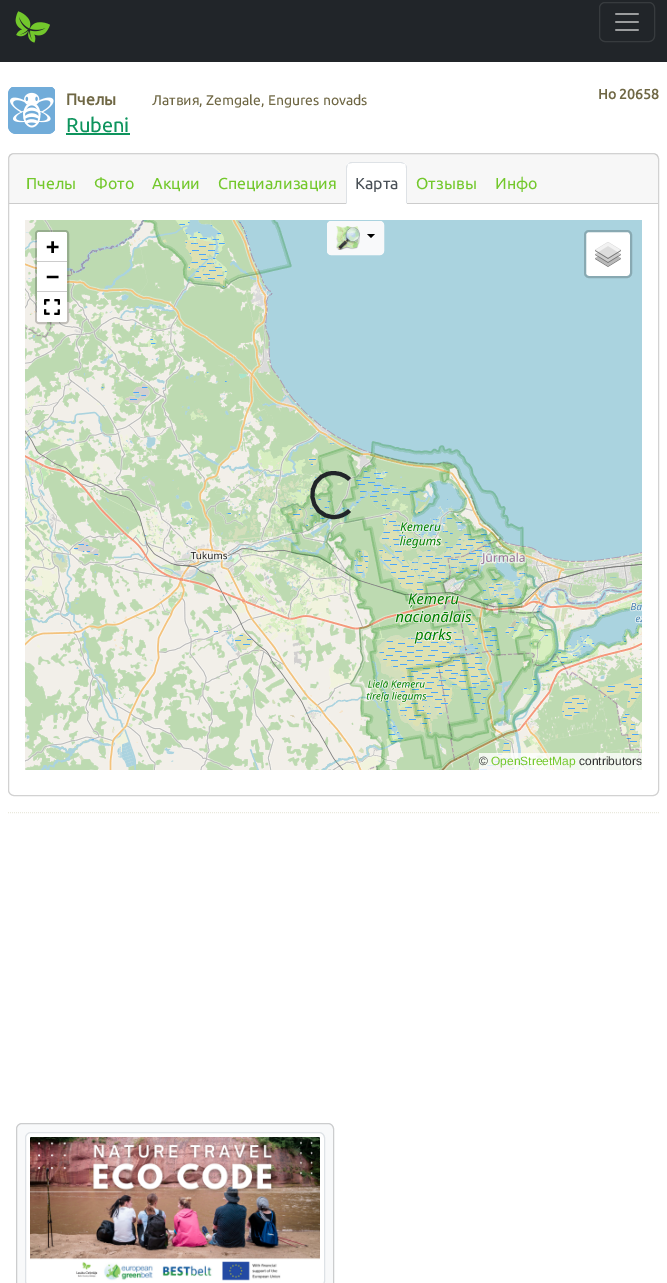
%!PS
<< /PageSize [667 1283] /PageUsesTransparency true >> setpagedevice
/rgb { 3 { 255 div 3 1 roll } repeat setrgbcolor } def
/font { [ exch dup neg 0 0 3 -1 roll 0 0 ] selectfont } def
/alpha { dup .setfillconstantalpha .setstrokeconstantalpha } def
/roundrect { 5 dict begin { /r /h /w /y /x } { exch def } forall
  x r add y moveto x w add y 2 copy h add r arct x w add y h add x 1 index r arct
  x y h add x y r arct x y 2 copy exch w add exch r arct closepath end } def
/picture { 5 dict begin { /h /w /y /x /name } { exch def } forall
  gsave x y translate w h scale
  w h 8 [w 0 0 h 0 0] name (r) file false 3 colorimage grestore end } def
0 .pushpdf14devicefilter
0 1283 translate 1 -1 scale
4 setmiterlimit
255 255 255 rgb
0 0 667 1283 rectfill
33 37 41 rgb
0 0 667 62 rectfill
(img/1.rgb) 15 11 35 32 picture
55 59 62 rgb
599.5 2.5 55 39 5.5 roundrect stroke
(img/2.rgb) 615 13 24 18 picture
(img/3.rgb) 8 87 47 47 picture
14 148 93 rgb
66 133 64 2 rectfill
210 210 210 rgb
8.5 153.5 650 642 5.5 roundrect stroke
0.03 alpha
0 0 0 rgb
9 154 649 49 rectfill
1 alpha
204 204 204 rgb
9 203 649 1 rectfill
255 255 255 rgb
352 162 moveto 401 162 lineto 404.5 162 407 164.5 407 168 curveto 407 204 lineto 346 204 lineto 346 168 lineto 346 164.5 348.5 162 352 162 curveto closepath fill
222 226 230 rgb
352 162 moveto 350 162 349 163 348 164 curveto 349 164 350 163 352 163 curveto 401 163 lineto 402 163 404 164 405 164 curveto 404 163 402 162 401 162 curveto closepath 407 204 moveto 407 168 lineto 407 166 406 165 405 164 curveto 406 165 406 166 406 168 curveto 406 203 lineto closepath fill
255 255 255 rgb
407 204 moveto 406 203 lineto 347 203 lineto 346 204 lineto closepath fill
222 226 230 rgb
346 204 moveto 347 203 lineto 347 168 lineto 347 166 348 165 348 164 curveto 347 165 346 166 346 168 curveto closepath fill
(img/6.rgb) 246 220 256 109 picture
248 249 250 rgb
327.5 221.5 56 33 3.5 roundrect gsave fill grestore
stroke
(img/4.rgb) 336 226 24 24 picture
0 0 0 rgb
367 234 moveto 375 234 lineto 371 238 lineto closepath fill
(img/5.rgb) 25 220 221 109 picture
170 211 223 rgb
502 220 140 109 rectfill
(img/7.rgb) 25 329 221 256 picture
(img/8.rgb) 246 329 256 256 picture
(img/9.rgb) 502 329 140 256 picture
(img/10.rgb) 25 585 221 185 picture
(img/11.rgb) 246 585 256 185 picture
(img/12.rgb) 502 585 140 185 picture
0.2 alpha
0 0 0 rgb
2 setlinewidth
36 231 32 92 3 roundrect stroke
1 alpha
255 255 255 rgb
39 232 moveto 65 232 lineto 66 232 67 233 67 234 curveto 67 262 lineto 37 262 lineto 37 234 lineto 37 233 38 232 39 232 curveto closepath fill
[
  [37 261 30 1 204 204 204]
  [37 262 30 29 255 255 255]
  [37 291 30 1 204 204 204]
] { aload pop rgb rectfill } forall
255 255 255 rgb
37 292 moveto 67 292 lineto 67 320 lineto 67 321 66 322 65 322 curveto 39 322 lineto 38 322 37 321 37 320 curveto closepath fill
(img/13.rgb) 44 299 16 16 picture
585 231 46 46 4 roundrect gsave fill grestore
136 169 178 rgb
stroke
(img/14.rgb) 595 242 26 25 picture
0.8 alpha
255 255 255 rgb
479 753 163 17 rectfill
1 alpha
33 37 41 rgb
4 setlinewidth
349.5 510.5 moveto 345.5 514.5 340 517 334 517 curveto 308 517 304 478.5 329.5 473.5 curveto 337 472 344.5 474.5 349.5 479.5 curveto stroke
234 233 221 rgb
1 setlinewidth
[1 1] 0 setdash
8 812.5 moveto 659 812.5 lineto stroke
248 249 250 rgb
16.5 1123.5 317 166 5.5 roundrect gsave fill grestore
204 205 206 rgb
[] 0 setdash
stroke
255 255 255 rgb
25.5 1132.5 299 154 5.5 roundrect gsave fill grestore
222 226 230 rgb
stroke
(img/15.rgb) 30 1137 290 144 picture
/Ubuntu-Bold 16 font
111 103 68 rgb
66 105 moveto (Пчелы) show
/Ubuntu-Regular 14 font
152 105 moveto (Латвия, Zemgale, Engures novads) show
/Ubuntu-Bold 14 font
598 99 moveto (Нo 20658) show
/Ubuntu-Regular 20 font
14 148 93 rgb
66 132 moveto (Rubeni) show
/Ubuntu-Regular 16 font
115 200 44 rgb
[
  [(Пчелы) 26 189]
  [(Фото) 94 189]
  [(Акции) 152 189]
  [(Специализация) 218 189]
] { aload pop moveto show } forall
73 80 87 rgb
355 189 moveto (Карта) show
115 200 44 rgb
416 189 moveto (Отзывы) show
495 189 moveto (Инфо) show
/DejaVuSansMono-Bold 22 font
0 0 0 rgb
46 254 moveto (+) show
46 284 moveto (−) show
/LiberationSans-Regular 12 font
51 51 51 rgb
479 765 moveto (©) show
115 200 44 rgb
491 765 moveto (OpenStreetMap) show
51 51 51 rgb
579 765 moveto (contributors) show
.poppdf14devicefilter showpage
